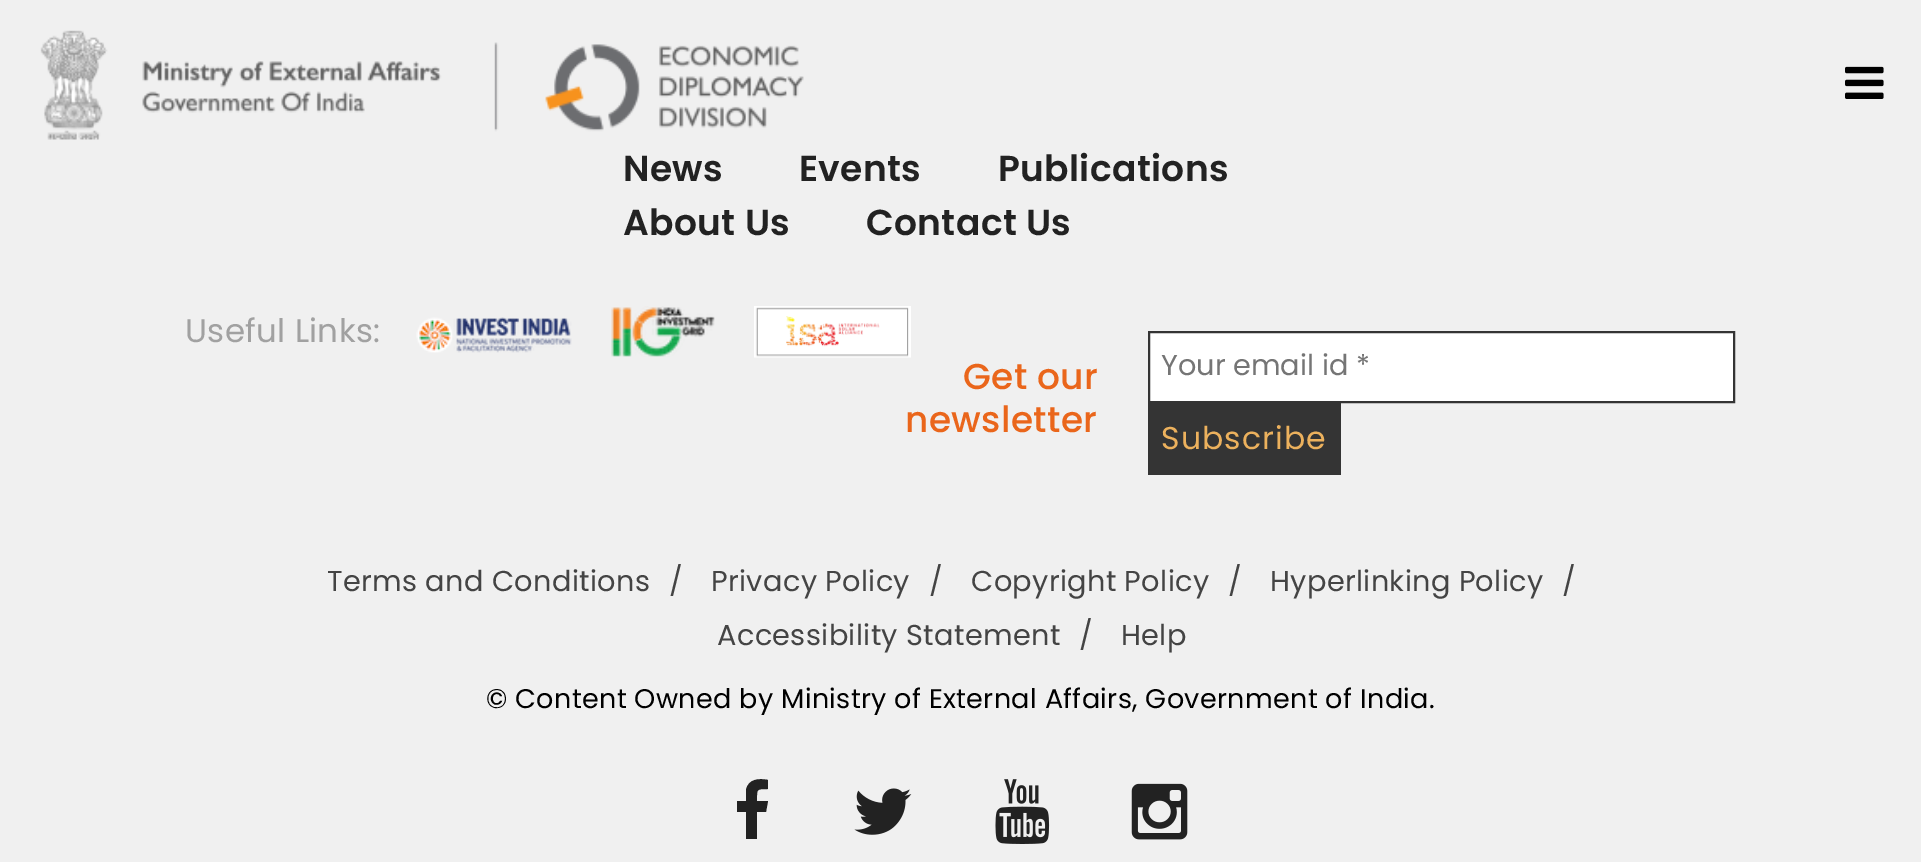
%!PS
<< /PageSize [1921 862] >> setpagedevice
/rgb { 3 { 255 div 3 1 roll } repeat setrgbcolor } def
/font { [ exch dup neg 0 0 3 -1 roll 0 0 ] selectfont } def
/picture { 5 dict begin { /h /w /y /x /name } { exch def } forall
  gsave x y translate w h scale
  w h 8 [w 0 0 h 0 0] name (r) file false 3 colorimage grestore end } def
0 862 translate 1 -1 scale
4 setmiterlimit
240 240 240 rgb
0 0 1921 862 rectfill
(img/1.rgb) 40 30 764 110 picture
(img/2.rgb) 1845 66 39 33 picture
(img/3.rgb) 416 317 156 36 picture
(img/4.rgb) 611 306 104 51 picture
(img/5.rgb) 754 306 157 52 picture
255 255 255 rgb
1149 332 moveto 1734 332 lineto 1734 402 lineto 1149 402 lineto closepath gsave fill grestore
52 52 52 rgb
2 setlinewidth
stroke
1148 403 193 72 rectfill
34 34 34 rgb
768 780 moveto 768 789 lineto 756 789 757 789 757 801 curveto 768 801 lineto 766 812 lineto 757 812 lineto 757 839 lineto 746 839 lineto 746 812 lineto 737 812 lineto 737 801 lineto 746 801 lineto 746 790 lineto 748 779 759 778 768 780 curveto closepath fill
(img/6.rgb) 854 788 58 47 picture
(img/7.rgb) 995 779 55 65 picture
(img/8.rgb) 1131 783 57 57 picture
/Poppins-SemiBold 36 font
623 181 moveto 0.35 0 (News) ashow
799 181 moveto 0.35 0 (Events) ashow
998 181 moveto 0.35 0 (Publications) ashow
623 235 moveto 0.35 0 (About Us) ashow
866 235 moveto 0.35 0 (Contact Us) ashow
/Poppins-Regular 32.5 font
161 161 161 rgb
185 342 moveto 0.35 0 (Useful Links:) ashow
/Poppins-Medium 36 font
234 102 27 rgb
963 389 moveto 0.35 0 (Get our) ashow
905 432 moveto 0.35 0 (newsletter) ashow
/Poppins-Regular 28.75 font
117 117 117 rgb
1161 375 moveto (Your email id *) show
/Poppins-Regular 31.5 font
236 177 93 rgb
1161 449 moveto 1.1 0 (Subscribe) ashow
/Poppins-Regular 28.75 font
68 68 68 rgb
327 591 moveto 0.35 0 (Terms and Conditions) ashow
669 591 moveto 0.35 0 (/) ashow
711 591 moveto 0.35 0 (Privacy Policy) ashow
929 591 moveto 0.35 0 (/) ashow
971 591 moveto 0.35 0 (Copyright Policy) ashow
1228 591 moveto 0.35 0 (/) ashow
1270 591 moveto 0.35 0 (Hyperlinking Policy) ashow
1562 591 moveto 0.35 0 (/) ashow
717 645 moveto 0.35 0 (Accessibility Statement) ashow
1079 645 moveto 0.35 0 (/) ashow
1121 645 moveto 0.35 0 (Help) ashow
/Poppins-Regular 27 font
0 0 0 rgb
486 708 moveto 0.35 0 (© Content Owned by Ministry of External Affairs, Government of India.) ashow
showpage
